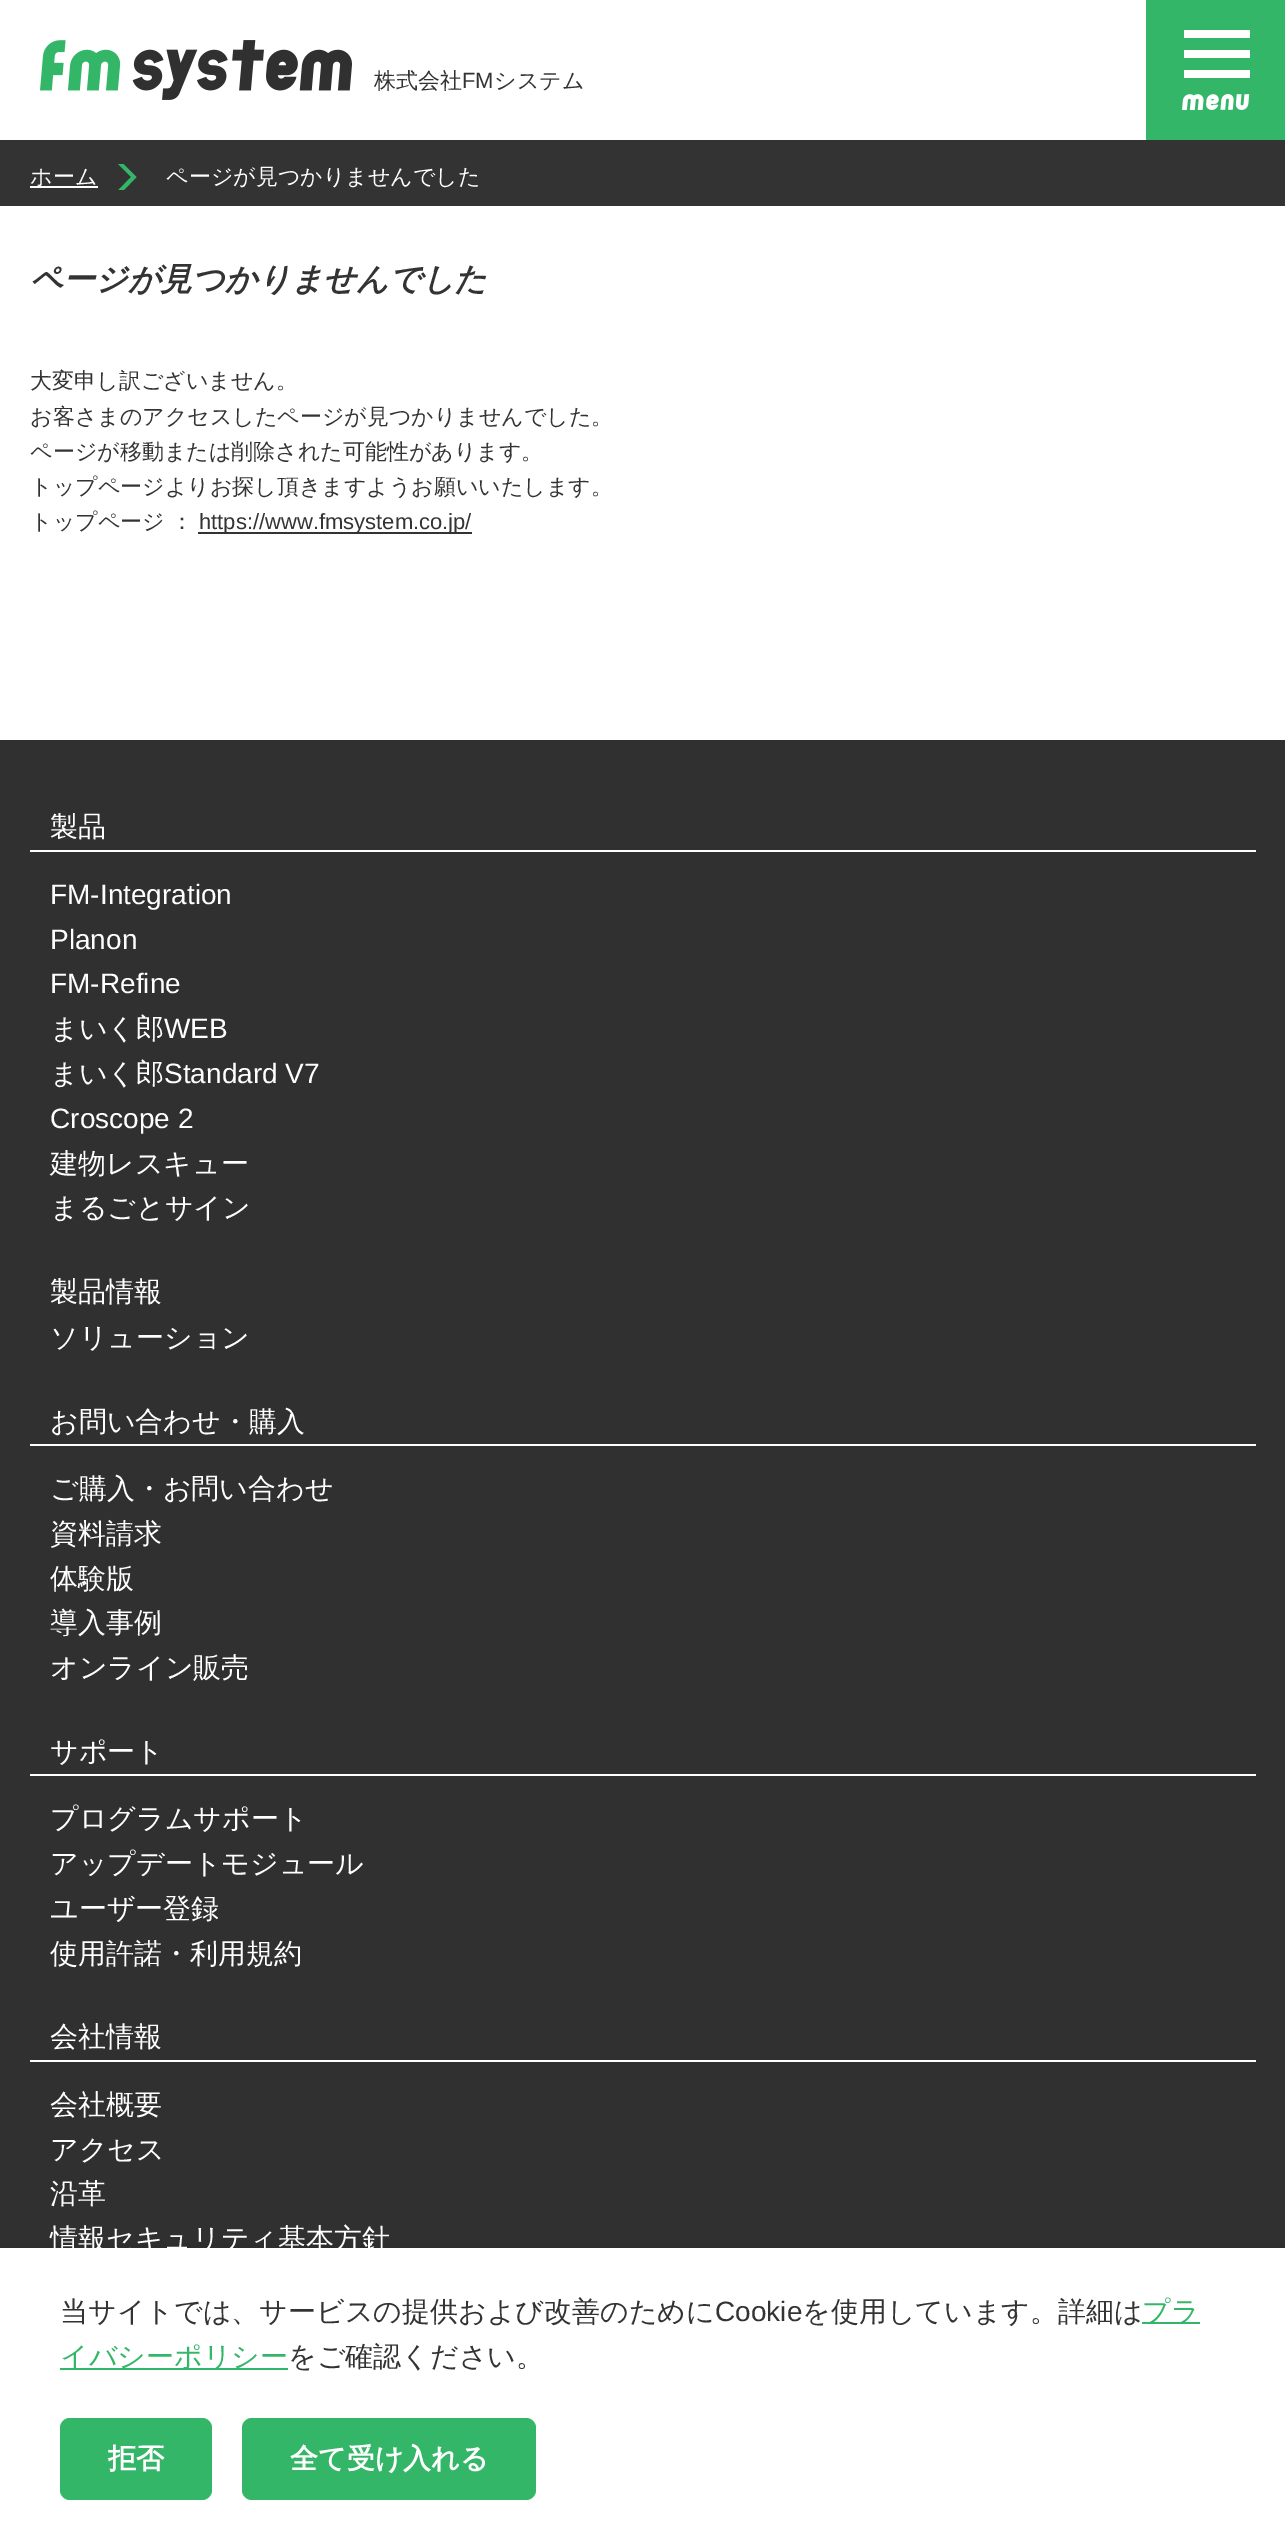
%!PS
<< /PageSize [1285 2540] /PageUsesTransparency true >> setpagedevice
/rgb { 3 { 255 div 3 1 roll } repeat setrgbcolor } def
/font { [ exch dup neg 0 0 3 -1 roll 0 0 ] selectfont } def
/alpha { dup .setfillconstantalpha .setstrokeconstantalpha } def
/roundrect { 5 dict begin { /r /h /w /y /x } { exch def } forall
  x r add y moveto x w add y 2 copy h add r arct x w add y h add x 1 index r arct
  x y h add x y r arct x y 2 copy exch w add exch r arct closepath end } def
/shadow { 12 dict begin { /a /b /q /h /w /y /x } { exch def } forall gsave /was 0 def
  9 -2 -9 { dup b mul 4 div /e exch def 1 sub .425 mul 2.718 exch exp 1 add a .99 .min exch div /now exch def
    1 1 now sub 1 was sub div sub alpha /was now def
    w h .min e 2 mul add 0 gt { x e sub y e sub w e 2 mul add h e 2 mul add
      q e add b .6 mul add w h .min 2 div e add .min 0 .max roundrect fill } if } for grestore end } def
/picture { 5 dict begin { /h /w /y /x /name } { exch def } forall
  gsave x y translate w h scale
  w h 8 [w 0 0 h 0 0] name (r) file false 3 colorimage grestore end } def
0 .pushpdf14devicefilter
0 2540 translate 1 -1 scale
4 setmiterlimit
255 255 255 rgb
0 0 1285 2540 rectfill
(img/1.rgb) 40 40 312 60 picture
[
  [1146 0 139 140 51 182 104]
  [1184 30 66 8 255 255 255]
  [1184 50 66 8 255 255 255]
  [1184 70 66 8 255 255 255]
] { aload pop rgb rectfill } forall
(img/2.rgb) 1182 94 68 16 picture
51 51 51 rgb
0 140 1285 66 rectfill
gsave
118 164 20 26 rectclip
51 182 104 rgb
123.5 190.5 moveto 136.5 177 lineto 123.5 164 lineto 118 164 lineto 131 177 lineto 118 190.5 lineto closepath eofill
grestore
[
  [30 186 68 2 255 255 255]
  [198 532 274 2 51 51 51]
  [0 740 1285 1508 48 48 48]
  [30 850 1226 2 255 255 255]
  [30 1444 1226 2 255 255 255]
  [30 1774 1226 2 255 255 255]
  [30 2060 1226 2 255 255 255]
] { aload pop rgb rectfill } forall
0 0 0 rgb
0 2244 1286 292 0 5 0.1 shadow
[
  [0 2248 1285 292 255 255 255]
  [1142 2322 58 2 51 182 104]
  [60 2368 228 2 51 182 104]
] { aload pop rgb rectfill } forall
60 2418 152 82 10 roundrect fill
242 2418 294 82 10 roundrect fill
/WenQuanYiZenHei-Medium 22 font
51 51 51 rgb
374 88 moveto (株式会社) show
/LiberationSans-Regular 22 font
462 88 moveto (FM) show
/WenQuanYiZenHei-Medium 22 font
494 88 moveto (システム) show
255 255 255 rgb
30 184 moveto (ホーム) show
166 184 moveto (ページが見つかりませんでした) show
/WenQuanYiZenHei-BoldItalic 32 font
51 51 51 rgb
30 290 moveto (ページが見つかりませんでした) show
/WenQuanYiZenHei-Medium 22 font
[
  [(大変申し訳ございません。) 30 388]
  [(お客さまのアクセスしたページが見つかりませんでした。) 30 424]
  [(ページが移動または削除された可能性があります。) 30 459]
  [(トップページよりお探し頂きますようお願いいたします。) 30 494]
  [(トップページ ：) 30 529]
] { aload pop moveto show } forall
/LiberationSans-Regular 22 font
199 529 moveto (https://www.fmsystem.co.jp/) show
/WenQuanYiZenHei-Medium 28 font
255 255 255 rgb
50 836 moveto (製品) show
/LiberationSans-Regular 28 font
[
  [(FM-Integration) 50 904]
  [(Planon) 50 949]
  [(FM-Refine) 50 993]
] { aload pop moveto show } forall
/WenQuanYiZenHei-Medium 28 font
50 1038 moveto (まいく郎) show
/LiberationSans-Regular 28 font
164 1038 moveto (WEB) show
/WenQuanYiZenHei-Medium 28 font
50 1083 moveto (まいく郎) show
/LiberationSans-Regular 28 font
164 1083 moveto (Standard V7) show
50 1128 moveto (Croscope 2) show
/WenQuanYiZenHei-Medium 28 font
[
  [(建物レスキュー) 50 1173]
  [(まるごとサイン) 50 1217]
  [(製品情報) 50 1301]
  [(ソリューション) 50 1347]
  [(お問い合わせ・購入) 50 1431]
  [(ご購入・お問い合わせ) 50 1498]
  [(資料請求) 50 1543]
  [(体験版) 50 1588]
  [(導入事例) 50 1632]
  [(オンライン販売) 50 1677]
  [(サポート) 50 1761]
  [(プログラムサポート) 50 1828]
  [(アップデートモジュール) 50 1873]
  [(ユーザー登録) 50 1918]
  [(使用許諾・利用規約) 50 1963]
  [(会社情報) 50 2046]
  [(会社概要) 50 2114]
  [(アクセス) 50 2159]
  [(沿革) 50 2203]
  [(情報セキュリティ基本方針) 50 2248]
] { aload pop moveto show } forall
51 51 51 rgb
60 2321 moveto (当サイトでは、サービスの提供および改善のために) show
/LiberationSans-Regular 28 font
715 2321 moveto (Cookie) show
/WenQuanYiZenHei-Medium 28 font
802 2321 moveto (を使用しています。詳細は) show
51 182 104 rgb
1142 2321 moveto (プラ) show
60 2366 moveto (イバシーポリシー) show
51 51 51 rgb
288 2366 moveto (をご確認ください。) show
/WenQuanYiZenHei-Bold 28 font
255 255 255 rgb
108 2468 moveto (拒否) show
290 2468 moveto (全て受け入れる) show
.poppdf14devicefilter showpage
